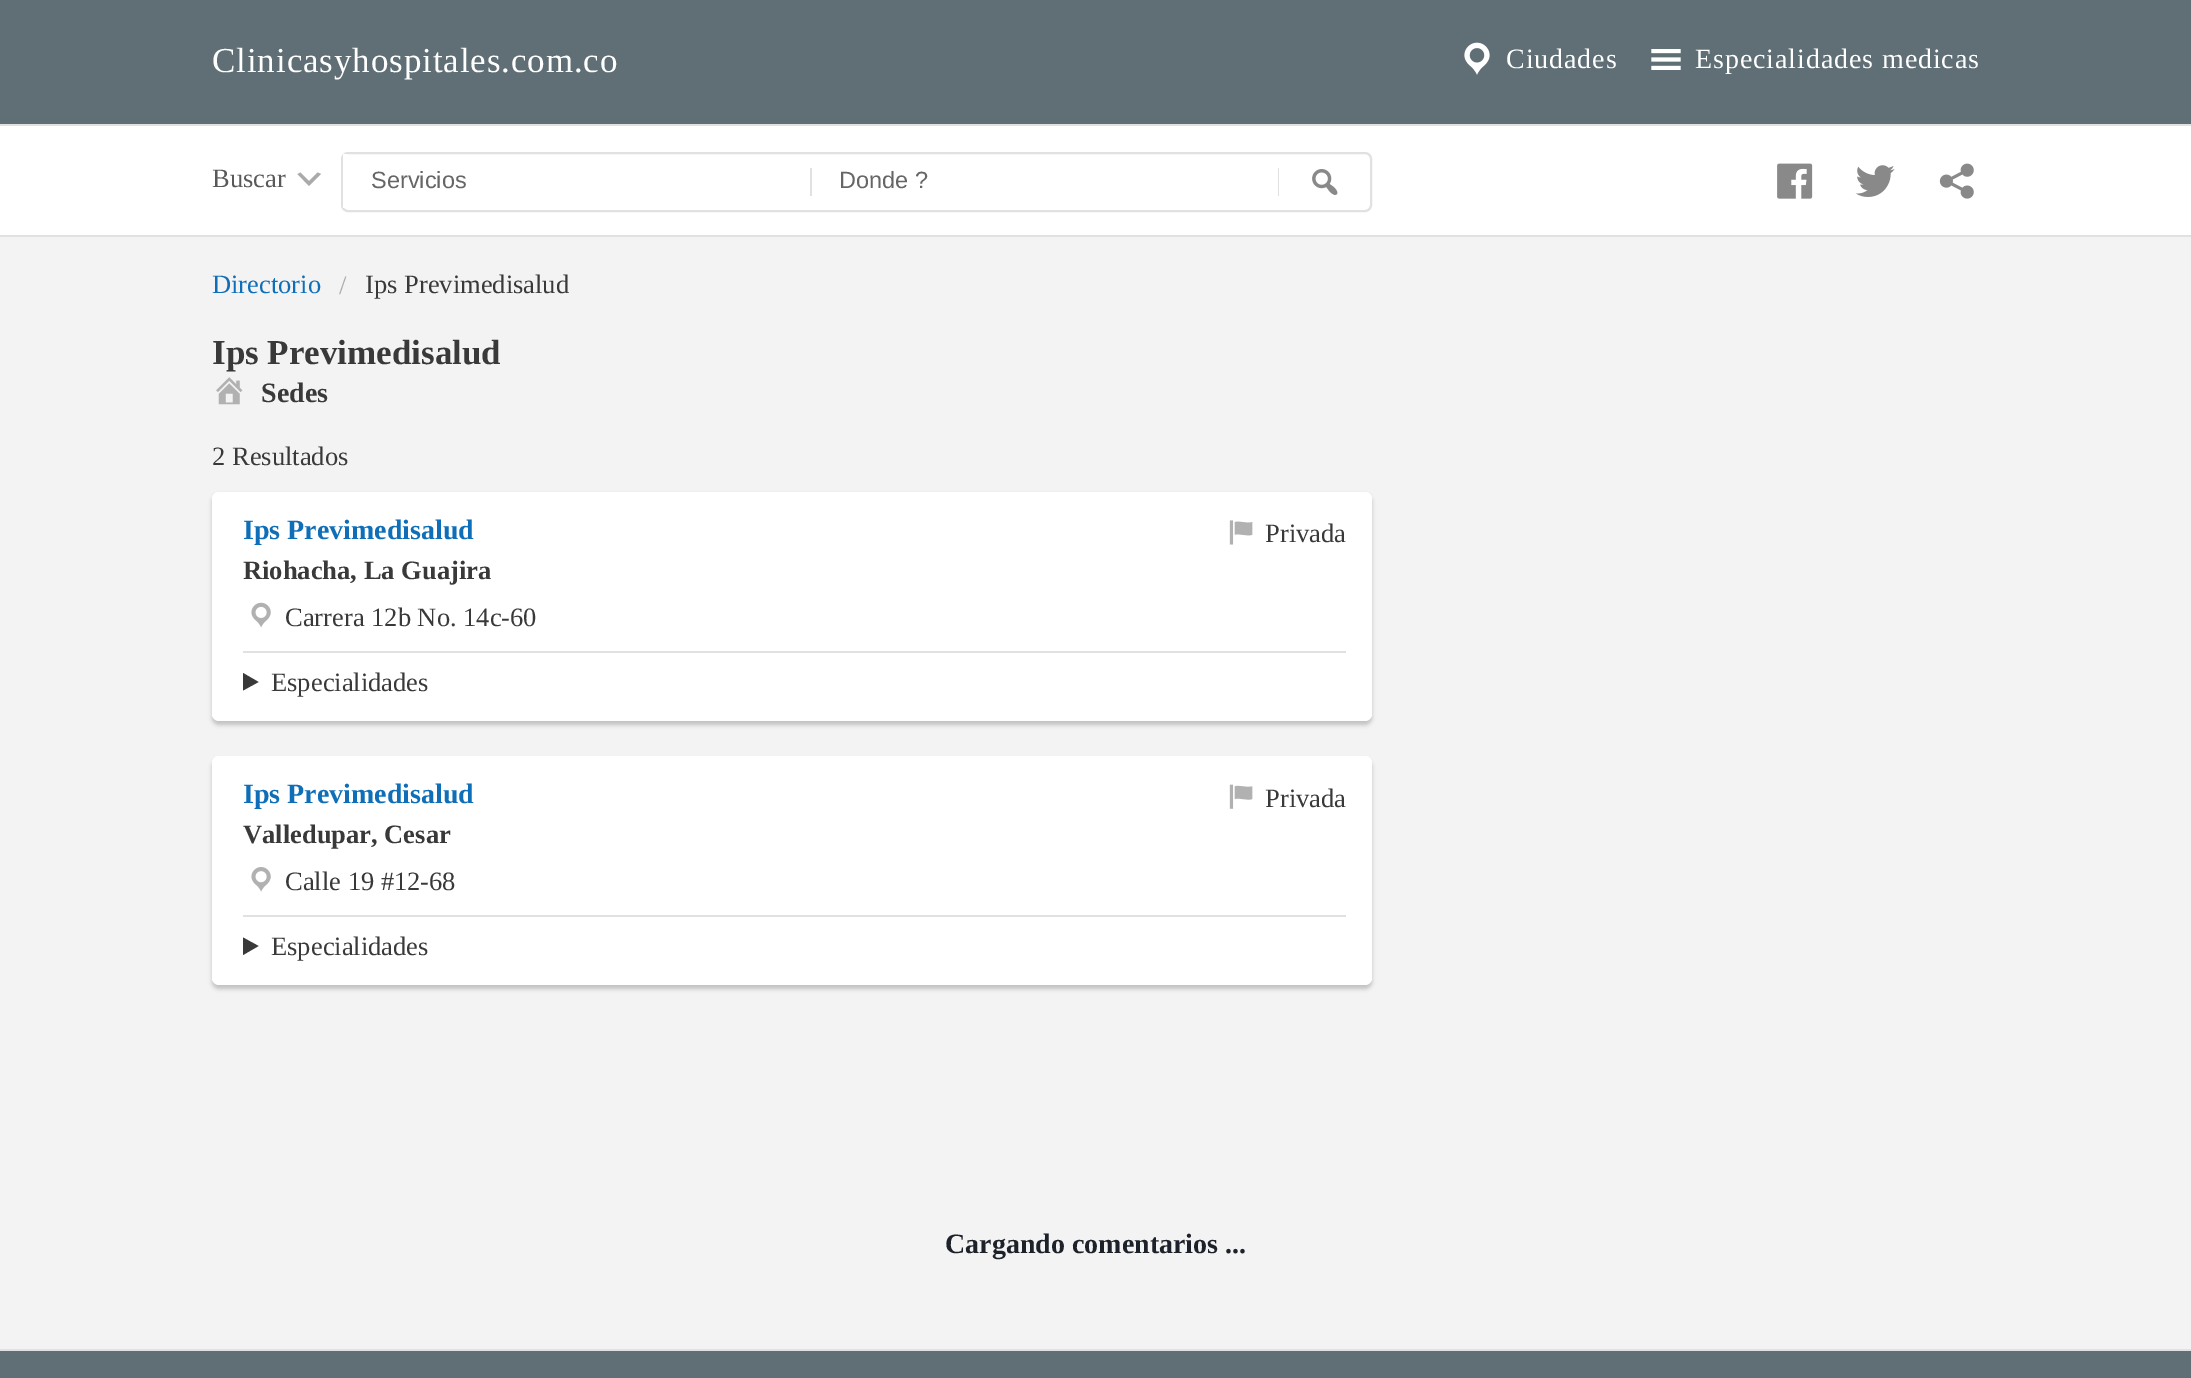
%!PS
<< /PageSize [2191 1378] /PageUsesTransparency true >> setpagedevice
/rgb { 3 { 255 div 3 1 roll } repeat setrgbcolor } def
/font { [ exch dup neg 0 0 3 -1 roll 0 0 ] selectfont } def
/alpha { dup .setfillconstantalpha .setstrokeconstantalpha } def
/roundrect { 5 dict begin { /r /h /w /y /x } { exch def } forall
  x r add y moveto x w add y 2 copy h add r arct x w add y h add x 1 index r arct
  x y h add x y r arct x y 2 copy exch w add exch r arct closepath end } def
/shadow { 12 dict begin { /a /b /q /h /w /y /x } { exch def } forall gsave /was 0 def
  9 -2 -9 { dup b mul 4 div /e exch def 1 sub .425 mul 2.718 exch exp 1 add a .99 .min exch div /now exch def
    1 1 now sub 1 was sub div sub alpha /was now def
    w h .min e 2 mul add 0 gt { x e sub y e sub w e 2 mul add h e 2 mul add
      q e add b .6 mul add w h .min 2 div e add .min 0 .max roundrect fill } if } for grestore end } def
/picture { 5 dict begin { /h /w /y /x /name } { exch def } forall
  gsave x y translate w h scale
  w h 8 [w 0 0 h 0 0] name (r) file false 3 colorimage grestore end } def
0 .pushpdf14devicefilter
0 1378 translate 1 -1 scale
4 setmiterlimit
243 243 243 rgb
0 0 2191 1378 rectfill
95 111 117 rgb
0 0 2191 124 rectfill
(img/1.rgb) 1464 42 26 33 picture
(img/2.rgb) 1651 49 30 21 picture
[
  [0 126 2191 109 255 255 255]
  [0 124 2191 2 225 225 225]
  [0 235 2191 2 225 225 225]
] { aload pop rgb rectfill } forall
170 170 170 rgb
300.5 172.5 moveto 309 181 lineto 317.5 172.5 lineto 321 174 lineto 309 186 lineto 297.5 174 lineto closepath fill
225 225 225 rgb
2 setlinewidth
342 153 1029 58 6 roundrect stroke
[
  [343 154 4 54 255 255 255]
  [810 168 2 28 225 225 225]
  [1278 168 1 28 225 225 225]
] { aload pop rgb rectfill } forall
(img/3.rgb) 1312 169 26 26 picture
(img/4.rgb) 1777 163 36 36 picture
(img/5.rgb) 1855 165 40 32 picture
(img/6.rgb) 1939 163 35 36 picture
(img/7.rgb) 216 377 27 28 picture
0 0 0 rgb
212 495 1160 230 7 2 0.2 shadow
255 255 255 rgb
212 492 1160 229 7 roundrect fill
(img/8.rgb) 1229 520 24 25 picture
(img/9.rgb) 251 602 20 26 picture
225 225 225 rgb
243 651 1103 2 rectfill
57 57 57 rgb
243 673 moveto 258.5 682 lineto 243 690.5 lineto closepath fill
0 0 0 rgb
212 760 1160 229 7 2 0.2 shadow
255 255 255 rgb
212 756 1160 229 7 roundrect fill
(img/10.rgb) 1229 784 24 25 picture
(img/11.rgb) 251 867 20 25 picture
225 225 225 rgb
243 915 1103 2 rectfill
57 57 57 rgb
243 937.5 moveto 258.5 946 lineto 243 955 lineto closepath fill
95 111 117 rgb
0 1351 2191 27 rectfill
225 225 225 rgb
0 1349 2191 2 rectfill
/LiberationSerif-Regular 35 font
255 255 255 rgb
212 72 moveto 0.9 0 (Clinicasyhospitales.com.co) ashow
/LiberationSerif-Regular 28 font
1506 68 moveto 0.9 0 (Ciudades) ashow
1695 68 moveto 0.9 0 (Especialidades medicas) ashow
/LiberationSerif-Regular 26.5 font
89 89 89 rgb
212 187 moveto (Buscar) show
/LiberationSans-Regular 23.5 font
102 102 102 rgb
371 188 moveto (Servicios) show
839 188 moveto (Donde ?) show
/LiberationSerif-Regular 26.5 font
14 110 184 rgb
212 293 moveto (Directorio) show
170 170 170 rgb
339 294 moveto (/) show
57 57 57 rgb
365 293 moveto (Ips Previmedisalud) show
/LiberationSerif-Bold 35 font
212 364 moveto (Ips Previmedisalud) show
/LiberationSerif-Bold 28 font
261 402 moveto (Sedes) show
/LiberationSerif-Regular 26.5 font
212 465 moveto (2 Resultados) show
/LiberationSerif-Bold 28 font
14 110 184 rgb
243 539 moveto (Ips Previmedisalud) show
/LiberationSerif-Regular 26.5 font
57 57 57 rgb
1265 542 moveto (Privada) show
/LiberationSerif-Bold 26.5 font
243 579 moveto (Riohacha, La Guajira) show
/LiberationSerif-Regular 26.5 font
285 626 moveto (Carrera 12b No. 14c-60) show
271 691 moveto (Especialidades) show
/LiberationSerif-Bold 28 font
14 110 184 rgb
243 803 moveto (Ips Previmedisalud) show
/LiberationSerif-Regular 26.5 font
57 57 57 rgb
1265 807 moveto (Privada) show
/LiberationSerif-Bold 26.5 font
243 843 moveto (Valledupar, Cesar) show
/LiberationSerif-Regular 26.5 font
285 890 moveto (Calle 19 #12-68) show
271 955 moveto (Especialidades) show
/LiberationSerif-Bold 28 font
29 33 41 rgb
945 1253 moveto (Cargando comentarios ...) show
.poppdf14devicefilter showpage
